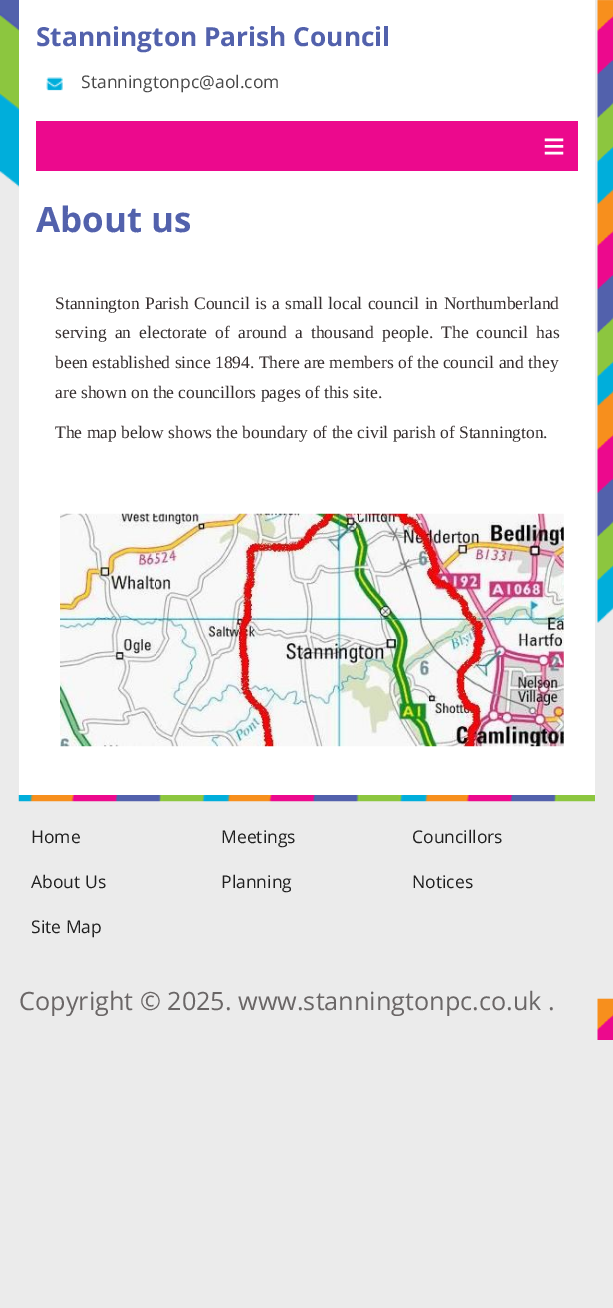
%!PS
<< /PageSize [613 1308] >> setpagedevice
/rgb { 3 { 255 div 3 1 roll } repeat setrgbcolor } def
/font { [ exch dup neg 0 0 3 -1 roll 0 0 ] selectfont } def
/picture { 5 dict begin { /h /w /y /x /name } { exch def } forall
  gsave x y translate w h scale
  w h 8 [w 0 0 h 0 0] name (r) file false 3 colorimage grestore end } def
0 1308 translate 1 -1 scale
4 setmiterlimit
235 235 235 rgb
0 0 613 1308 rectfill
(img/1.rgb) 0 0 19 188 picture
(img/2.rgb) 597 0 16 1040 picture
255 255 255 rgb
19 0 576 795 rectfill
(img/3.rgb) 46 77 17 14 picture
236 9 141 rgb
36 121 542 50 rectfill
(img/4.rgb) 60 513 504 234 picture
(img/5.rgb) 18 795 577 7 picture
/OpenSans-Bold 26.25 font
82 97 172 rgb
36 46 moveto (Stannington Parish Council) show
/OpenSans-Regular 17.5 font
73 73 73 rgb
81 88 moveto (Stanningtonpc@aol.com) show
/LiberationSans-Bold 38 font
255 255 255 rgb
543 159 moveto (≡) show
/OpenSans-Bold 35 font
82 97 172 rgb
36 232 moveto (About us) show
/LiberationSerif-Regular 17.5 font
54 47 47 rgb
55 309 moveto 1 0 32 (Stannington Parish Council is a small local council in Northumberland) widthshow
55 338 moveto 3.75 0 32 (serving an electorate of around a thousand people. The council has) widthshow
[
  [(been established since 1894. There are members of the council and they) 55 368]
  [(are shown on the councillors pages of this site.) 55 398]
  [(The map below shows the boundary of the civil parish of Stannington.) 55 438]
] { aload pop moveto show } forall
/OpenSans-Regular 17.5 font
31 31 31 rgb
[
  [(Home) 31 843]
  [(Meetings) 221 843]
  [(Councillors) 412 843]
  [(About Us) 31 888]
  [(Planning) 221 888]
  [(Notices) 412 888]
  [(Site Map) 31 933]
] { aload pop moveto show } forall
/OpenSans-Regular 25.2 font
106 102 102 rgb
19 1010 moveto (Copyright © 2025. www.stanningtonpc.co.uk .) show
showpage
